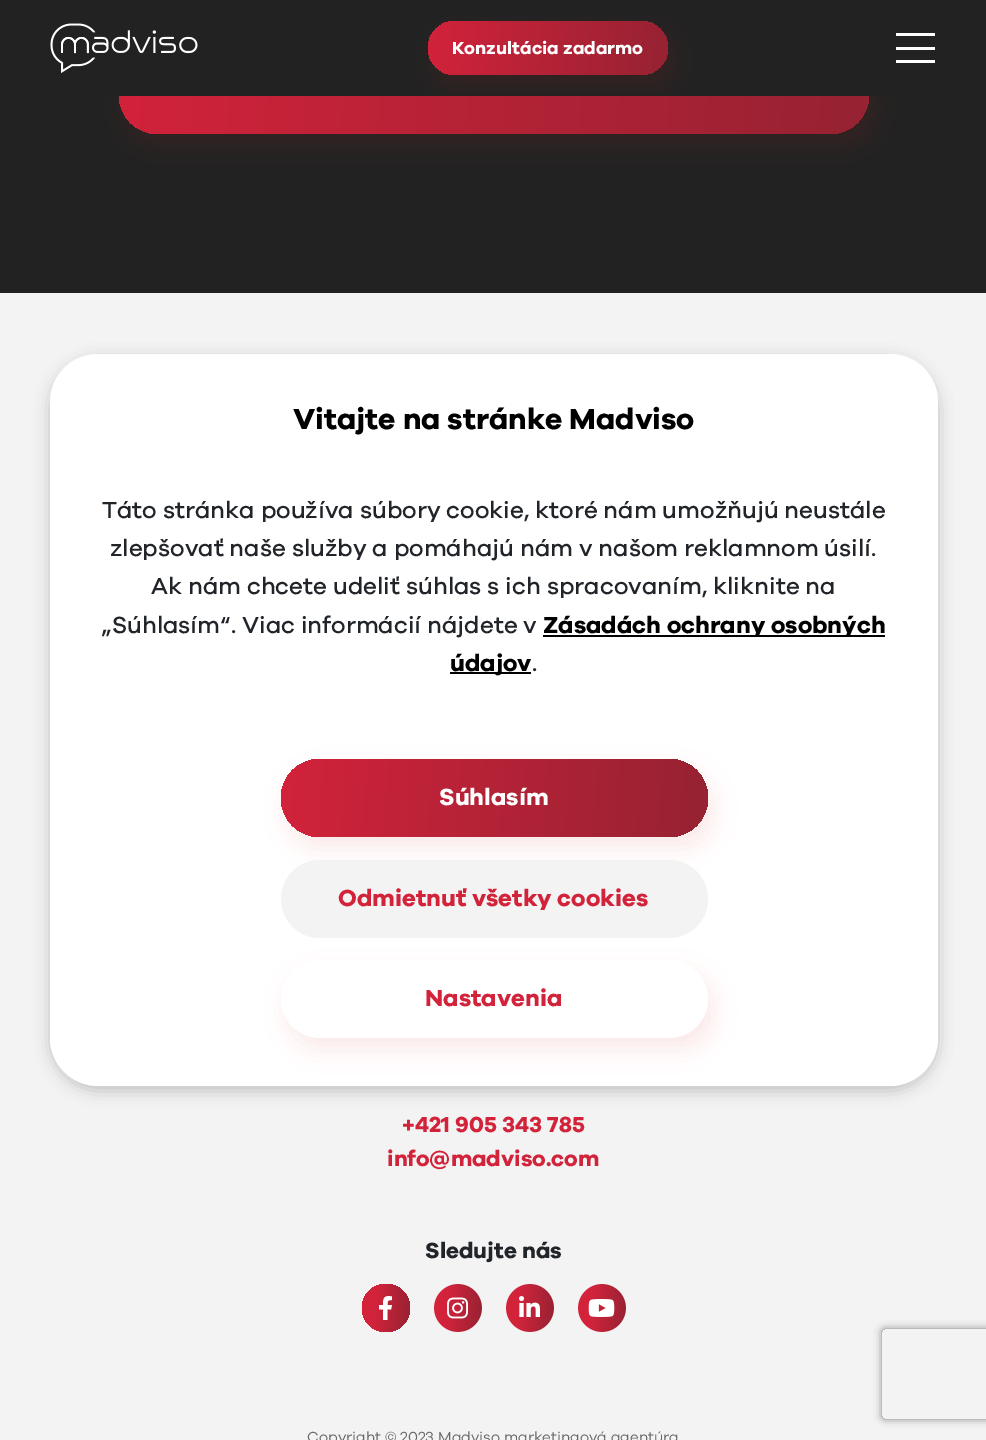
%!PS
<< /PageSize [986 1440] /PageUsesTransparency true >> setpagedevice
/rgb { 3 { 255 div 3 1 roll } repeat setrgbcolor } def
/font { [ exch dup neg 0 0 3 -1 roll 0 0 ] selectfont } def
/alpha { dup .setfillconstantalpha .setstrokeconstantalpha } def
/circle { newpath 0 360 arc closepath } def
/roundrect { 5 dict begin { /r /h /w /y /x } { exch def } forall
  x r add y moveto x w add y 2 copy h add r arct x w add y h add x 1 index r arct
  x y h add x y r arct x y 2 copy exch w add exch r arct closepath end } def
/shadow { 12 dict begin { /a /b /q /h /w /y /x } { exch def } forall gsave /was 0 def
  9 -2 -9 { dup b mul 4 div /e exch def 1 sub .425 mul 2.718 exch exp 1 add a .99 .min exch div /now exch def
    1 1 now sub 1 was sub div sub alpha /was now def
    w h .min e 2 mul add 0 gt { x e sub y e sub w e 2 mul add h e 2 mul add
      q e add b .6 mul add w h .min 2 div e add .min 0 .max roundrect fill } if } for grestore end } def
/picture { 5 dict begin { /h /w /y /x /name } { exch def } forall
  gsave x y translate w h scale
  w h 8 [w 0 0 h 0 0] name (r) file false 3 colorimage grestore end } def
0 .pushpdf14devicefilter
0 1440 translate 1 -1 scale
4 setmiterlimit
243 243 243 rgb
0 0 986 1440 rectfill
34 34 34 rgb
0 96 986 197 rectfill
210 35 59 rgb
125 68 750 78 39 11 0.1 shadow
gsave 119 56 750 78 39 roundrect clip newpath
<< /ShadingType 2 /ColorSpace /DeviceRGB /Coords [118 67 869 122] /Extend [true true] /Function << /FunctionType 2 /Domain [0 1] /C0 [0.824 0.137 0.231] /C1 [0.588 0.133 0.196] /N 1 >> >> shfill grestore
34 34 34 rgb
0 0 986 96 rectfill
(img/1.rgb) 50 23 148 50 picture
210 35 59 rgb
434 33 240 54 27 11 0.1 shadow
gsave 428 21 240 54 27 roundrect clip newpath
<< /ShadingType 2 /ColorSpace /DeviceRGB /Coords [426 39 669 57] /Extend [true true] /Function << /FunctionType 2 /Domain [0 1] /C0 [0.824 0.137 0.231] /C1 [0.588 0.133 0.196] /N 1 >> >> shfill grestore
[
  [896 33 39 3 255 255 255]
  [896 47 39 3 255 255 255]
  [896 60 39 3 255 255 255]
] { aload pop rgb rectfill } forall
0 0 0 rgb
50 359 888 732 48 7.5 0.2 shadow
255 255 255 rgb
50 354 888 732 48 roundrect fill
0 0 0 rgb
543 635 342 2 rectfill
450 672 81 2 rectfill
210 35 59 rgb
287 771 427 78 39 11 0.1 shadow
gsave 281 759 427 78 39 roundrect clip newpath
<< /ShadingType 2 /ColorSpace /DeviceRGB /Coords [279 782 710 814] /Extend [true true] /Function << /FunctionType 2 /Domain [0 1] /C0 [0.824 0.137 0.231] /C1 [0.588 0.133 0.196] /N 1 >> >> shfill grestore
243 243 243 rgb
281 860 427 78 39 roundrect fill
210 35 59 rgb
287 972 427 78 39 11 0.1 shadow
255 255 255 rgb
281 960 427 78 39 roundrect fill
gsave 386 1308 24 circle clip newpath
<< /ShadingType 2 /ColorSpace /DeviceRGB /Coords [362 1284 413 1288] /Extend [true true] /Function << /FunctionType 3 /Domain [0 1] /Functions [<< /FunctionType 2 /Domain [0 1] /C0 [0.824 0.137 0.231] /C1 [0.824 0.137 0.231] /N 1 >> << /FunctionType 2 /Domain [0 1] /C0 [0.824 0.137 0.231] /C1 [0.588 0.133 0.196] /N 1 >>] /Bounds [0.28] /Encode [0 1 0 1] >> >> shfill grestore
391 1309.5 moveto 392 1305 lineto 387.5 1305 lineto 387.5 1301 387.5 1300 392 1300 curveto 392 1296.5 lineto 384 1295 383 1298 383 1305 curveto 379 1305 lineto 379 1309.5 lineto 383 1309.5 lineto 383 1320 lineto 387.5 1320 lineto 387.5 1309.5 lineto closepath fill
(img/2.rgb) 434 1284 48 48 picture
(img/3.rgb) 506 1284 48 48 picture
(img/4.rgb) 578 1284 48 48 picture
gsave
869 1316 moveto 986 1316 lineto 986 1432 lineto 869 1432 lineto closepath 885 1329 moveto 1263 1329 lineto 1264.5 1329 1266 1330.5 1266 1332 curveto 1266 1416 lineto 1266 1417.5 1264.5 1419 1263 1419 curveto 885 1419 lineto 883.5 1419 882 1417.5 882 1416 curveto 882 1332 lineto 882 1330.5 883.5 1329 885 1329 curveto closepath eoclip newpath
128 128 128 rgb
882 1329 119 90 3 4 1 shadow
grestore
/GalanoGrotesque-Bold 18 font
452 54 moveto (Konzultácia zadarmo) show
/GalanoGrotesque-Bold 30 font
0 0 0 rgb
293 429 moveto (Vitajte na stránke Madviso) show
/GalanoGrotesque-Medium 24 font
33 37 41 rgb
[
  [(Táto stránka používa súbory cookie, ktoré nám umožňujú neustále) 102 518]
  [(zlepšovať naše služby a pomáhajú nám v našom reklamnom úsilí.) 110 556]
  [(Ak nám chcete udeliť súhlas s ich spracovaním, kliknite na) 151 594]
  [(„Súhlasím“. Viac informácií nájdete v) 101 633]
] { aload pop moveto show } forall
/GalanoGrotesque-Bold 24 font
0 0 0 rgb
543 633 moveto (Zásadách ochrany osobných) show
450 671 moveto (údajov) show
/GalanoGrotesque-Medium 24 font
33 37 41 rgb
532 671 moveto (.) show
/GalanoGrotesque-Bold 24 font
255 255 255 rgb
439 805 moveto (Súhlasím) show
210 35 59 rgb
338 906 moveto (Odmietnuť všetky cookies) show
425 1006 moveto (Nastavenia) show
/GalanoGrotesque-Bold 22.5 font
402 1132 moveto (+421 905 343 785) show
387 1166 moveto (info@madviso.com) show
33 37 41 rgb
425 1258 moveto (Sledujte nás) show
/GalanoGrotesque-Regular 15 font
102 102 102 rgb
307 1442 moveto (Copyright © 2023 Madviso marketingová agentúra) show
.poppdf14devicefilter showpage
